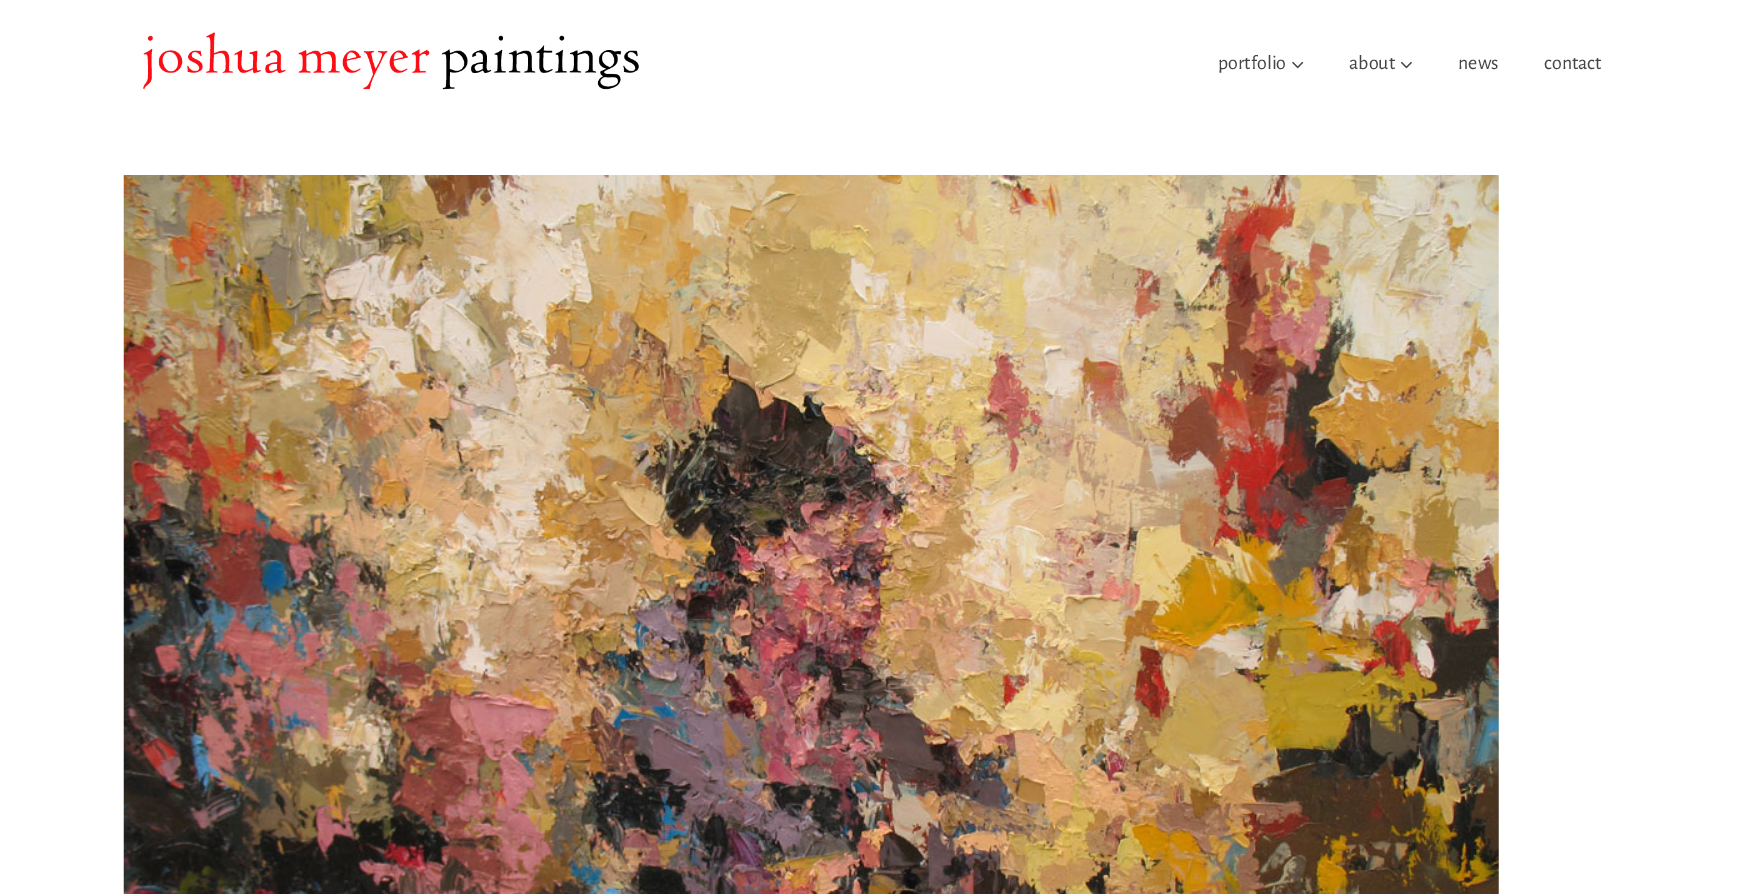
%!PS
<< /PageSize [1747 894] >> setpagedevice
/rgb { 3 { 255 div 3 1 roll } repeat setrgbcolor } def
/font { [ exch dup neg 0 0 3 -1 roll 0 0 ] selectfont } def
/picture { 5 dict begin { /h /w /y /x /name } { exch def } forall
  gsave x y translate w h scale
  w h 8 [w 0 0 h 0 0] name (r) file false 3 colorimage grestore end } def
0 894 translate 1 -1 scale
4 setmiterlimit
255 255 255 rgb
0 0 1747 894 rectfill
(img/1.rgb) 143 32 496 58 picture
(img/2.rgb) 1292 61 12 8 picture
(img/3.rgb) 1400 61 12 8 picture
(img/4.rgb) 123 175 1376 719 picture
/AlegreyaSans-Regular 20 font
69 69 69 rgb
[
  [(portfolio) 1218 69]
  [(about) 1349 69]
  [(news) 1458 69]
  [(contact) 1544 69]
] { aload pop moveto show } forall
showpage
